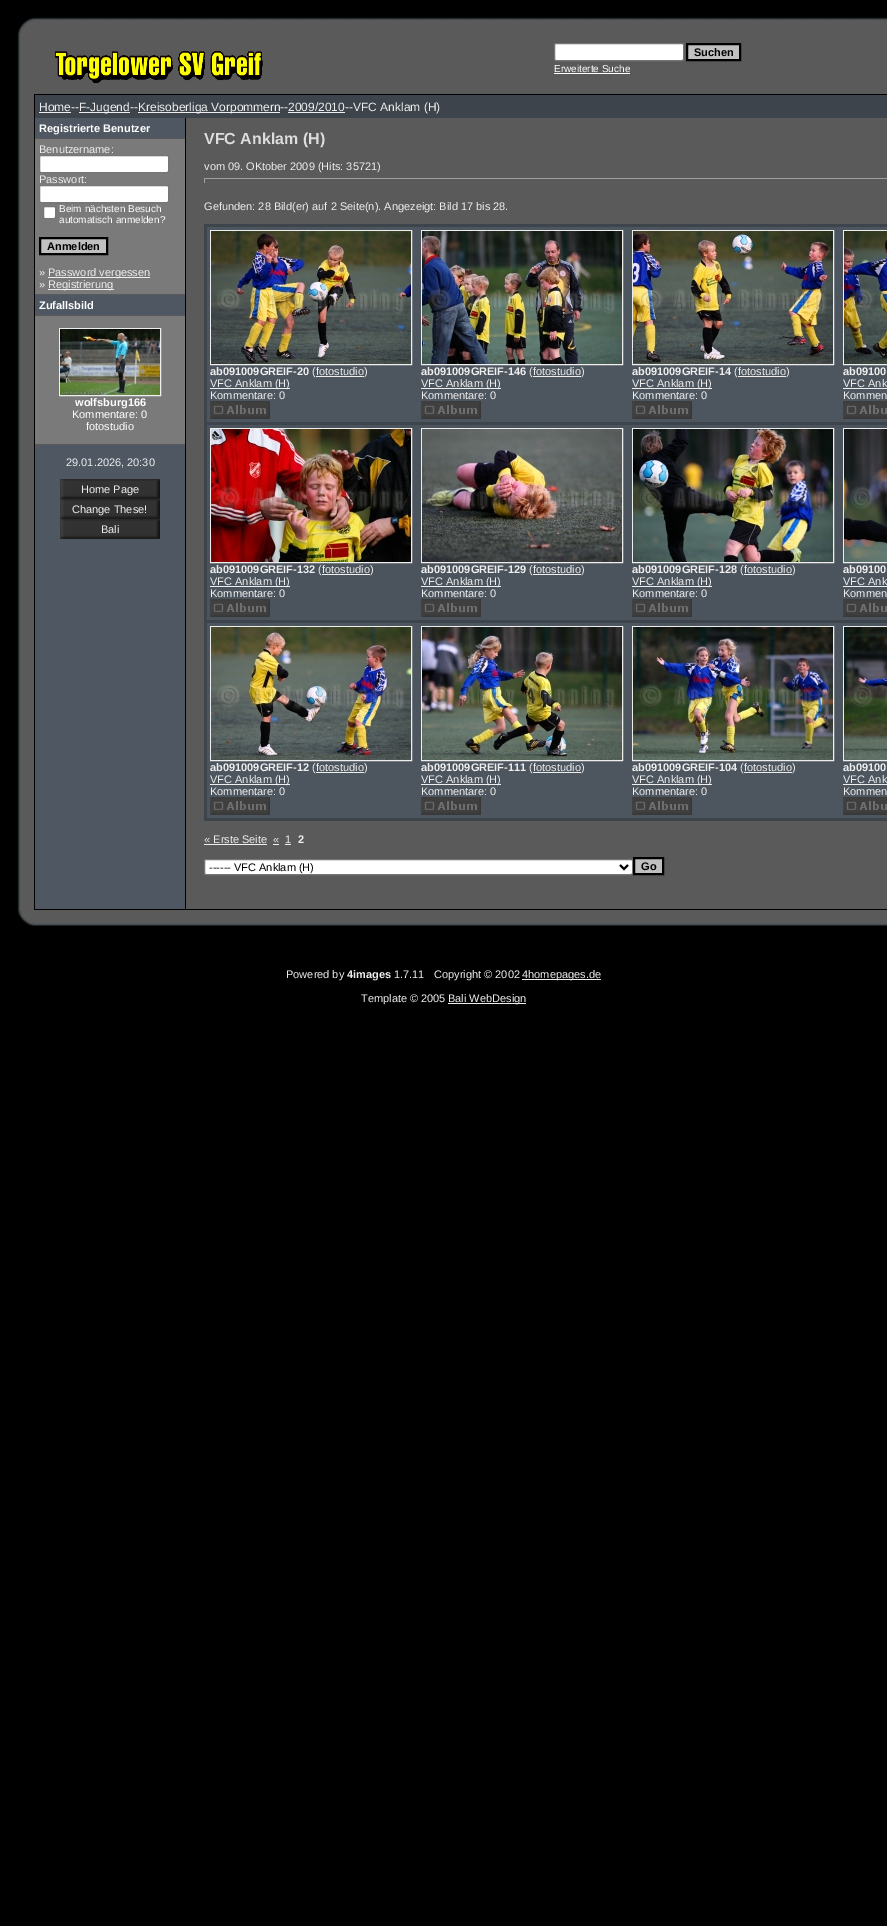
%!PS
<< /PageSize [887 1926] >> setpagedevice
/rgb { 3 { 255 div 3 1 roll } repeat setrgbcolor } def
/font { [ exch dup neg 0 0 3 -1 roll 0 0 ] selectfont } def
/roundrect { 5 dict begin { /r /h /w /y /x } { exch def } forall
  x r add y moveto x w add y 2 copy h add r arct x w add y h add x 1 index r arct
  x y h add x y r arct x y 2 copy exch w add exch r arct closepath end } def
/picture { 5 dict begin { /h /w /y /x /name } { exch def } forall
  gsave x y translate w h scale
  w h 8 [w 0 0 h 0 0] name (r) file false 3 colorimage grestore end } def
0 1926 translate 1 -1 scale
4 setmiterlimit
0 0 0 rgb
0 0 887 1926 rectfill
(img/1.rgb) 17 17 17 17 picture
(img/2.rgb) 34 17 853 17 picture
90 90 90 rgb
35 20 1 1 rectfill
(img/3.rgb) 17 34 17 876 picture
34 34 853 60 rectfill
(img/4.rgb) 54 51 209 33 picture
255 255 255 rgb
554.5 43.5 129 17 1.5 roundrect gsave fill grestore
118 118 118 rgb
stroke
192 192 192 rgb
687 44 moveto 740 44 lineto 740 60 lineto 687 60 lineto closepath gsave fill grestore
0 0 0 rgb
2 setlinewidth
stroke
[
  [554 73 76 1 255 255 255]
  [186 118 701 791 90 90 90]
  [35 95 852 23 61 68 75]
  [39 112 32 1 238 238 238]
  [79 112 51 1 238 238 238]
  [138 112 142 1 238 238 238]
  [288 112 57 1 238 238 238]
  [35 118 150 791 79 88 98]
  [35 138 150 1 90 90 90]
  [35 139 150 155 122 122 122]
] { aload pop rgb rectfill } forall
255 255 255 rgb
39.5 155.5 129 17 1.5 roundrect gsave fill grestore
118 118 118 rgb
1 setlinewidth
stroke
255 255 255 rgb
39.5 185.5 129 17 1.5 roundrect gsave fill grestore
118 118 118 rgb
stroke
255 255 255 rgb
43.5 206.5 12 12 1.5 roundrect gsave fill grestore
118 118 118 rgb
stroke
192 192 192 rgb
40 238 moveto 107 238 lineto 107 254 lineto 40 254 lineto closepath gsave fill grestore
0 0 0 rgb
2 setlinewidth
stroke
[
  [48 277 102 1 238 238 238]
  [48 289 66 1 238 238 238]
  [35 294 150 1 90 90 90]
  [35 315 150 1 90 90 90]
  [35 316 150 128 122 122 122]
] { aload pop rgb rectfill } forall
238 238 238 rgb
1 setlinewidth
59.5 328.5 101 67 rectstroke
(img/5.rgb) 60 329 100 66 picture
90 90 90 rgb
35 444 150 1 rectfill
(img/6.rgb) 60 479 100 20 picture
(img/6.rgb) 60 499 100 20 picture
(img/6.rgb) 60 519 100 20 picture
[
  [204 178 683 1 159 159 159]
  [204 178 1 5 159 159 159]
  [204 224 683 597 61 68 75]
  [207 227 680 195 77 85 94]
] { aload pop rgb rectfill } forall
238 238 238 rgb
210.5 230.5 201 134 rectstroke
(img/7.rgb) 211 231 200 133 picture
316 376 48 1 rectfill
210 388 80 1 rectfill
(img/8.rgb) 210 401 60 18 picture
421.5 230.5 201 134 rectstroke
(img/9.rgb) 422 231 200 133 picture
533 376 48 1 rectfill
421 388 80 1 rectfill
(img/8.rgb) 421 401 60 18 picture
632.5 230.5 201 134 rectstroke
(img/10.rgb) 633 231 200 133 picture
738 376 48 1 rectfill
632 388 80 1 rectfill
(img/8.rgb) 632 401 60 18 picture
843.5 230.5 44 134 rectstroke
(img/11.rgb) 844 231 43 133 picture
843 388 44 1 rectfill
(img/12.rgb) 843 401 44 18 picture
75 84 92 rgb
207 425 680 195 rectfill
238 238 238 rgb
210.5 428.5 201 134 rectstroke
(img/13.rgb) 211 429 200 133 picture
322 574 48 1 rectfill
210 586 80 1 rectfill
(img/8.rgb) 210 599 60 18 picture
421.5 428.5 201 134 rectstroke
(img/14.rgb) 422 429 200 133 picture
533 574 48 1 rectfill
421 586 80 1 rectfill
(img/8.rgb) 421 599 60 18 picture
632.5 428.5 201 134 rectstroke
(img/15.rgb) 633 429 200 133 picture
744 574 48 1 rectfill
632 586 80 1 rectfill
(img/8.rgb) 632 599 60 18 picture
843.5 428.5 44 134 rectstroke
(img/16.rgb) 844 429 43 133 picture
843 586 44 1 rectfill
(img/12.rgb) 843 599 44 18 picture
77 85 94 rgb
207 623 680 195 rectfill
238 238 238 rgb
210.5 626.5 201 134 rectstroke
(img/17.rgb) 211 627 200 133 picture
316 772 48 1 rectfill
210 784 80 1 rectfill
(img/8.rgb) 210 797 60 18 picture
421.5 626.5 201 134 rectstroke
(img/18.rgb) 422 627 200 133 picture
533 772 48 1 rectfill
421 784 80 1 rectfill
(img/8.rgb) 421 797 60 18 picture
632.5 626.5 201 134 rectstroke
(img/19.rgb) 633 627 200 133 picture
744 772 48 1 rectfill
632 784 80 1 rectfill
(img/8.rgb) 632 797 60 18 picture
843.5 626.5 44 134 rectstroke
(img/20.rgb) 844 627 43 133 picture
843 784 44 1 rectfill
(img/12.rgb) 843 797 44 18 picture
[
  [204 844 63 1 238 238 238]
  [273 844 6 1 238 238 238]
  [285 844 6 1 238 238 238]
] { aload pop rgb rectfill } forall
255 255 255 rgb
204.5 859.5 428 15 1.5 roundrect gsave fill grestore
118 118 118 rgb
stroke
0 0 0 rgb
2 setlinewidth
620 865 moveto 624 869 lineto 628 865 lineto stroke
192 192 192 rgb
634 858 moveto 663 858 lineto 663 874 lineto 634 874 lineto closepath gsave fill grestore
0 0 0 rgb
stroke
(img/21.rgb) 17 910 17 17 picture
(img/22.rgb) 34 910 853 16 picture
(img/23.rgb) 35 923 10 1 picture
238 238 238 rgb
522 979 79 1 rectfill
448 1003 78 1 rectfill
/LiberationSans-Bold 11 font
0 0 0 rgb
694 56 moveto (Suchen) show
/LiberationSans-Regular 10 font
255 255 255 rgb
554 72 moveto (Erweiterte Suche) show
/LiberationSans-Regular 12 font
238 238 238 rgb
[
  [(Home) 39 111]
  [(--) 71 111]
  [(F-Jugend) 79 111]
  [(--) 130 111]
  [(Kreisoberliga Vorpommern) 138 111]
  [(--) 280 111]
  [(2009/2010) 288 111]
  [(--VFC Anklam \(H\)) 345 111]
] { aload pop moveto show } forall
/LiberationSans-Bold 11 font
255 255 255 rgb
39 132 moveto (Registrierte Benutzer) show
/LiberationSans-Regular 11 font
238 238 238 rgb
39 153 moveto (Benutzername:) show
39 183 moveto (Passwort:) show
/LiberationSans-Regular 10 font
255 255 255 rgb
59 212 moveto (Beim nächsten Besuch) show
59 223 moveto (automatisch anmelden?) show
/LiberationSans-Bold 11 font
0 0 0 rgb
47 250 moveto (Anmelden) show
/LiberationSans-Regular 11 font
238 238 238 rgb
[
  [(») 39 276]
  [(Password vergessen) 48 276]
  [(») 39 288]
  [(Registrierung) 48 288]
] { aload pop moveto show } forall
/LiberationSans-Bold 11 font
255 255 255 rgb
39 309 moveto (Zufallsbild) show
75 406 moveto (wolfsburg166) show
/LiberationSans-Regular 11 font
72 418 moveto (Kommentare: 0) show
86 430 moveto (fotostudio) show
238 238 238 rgb
[
  [(29.01.2026, 20:30) 66 466]
  [(Home Page) 81 493]
  [(Change These!) 72 513]
  [(Bali) 101 533]
] { aload pop moveto show } forall
/LiberationSans-Bold 16 font
221 221 221 rgb
204 144 moveto (VFC Anklam \(H\)) show
/LiberationSans-Regular 11 font
238 238 238 rgb
204 170 moveto (vom 09. OKtober 2009 \(Hits: 35721\)) show
204 210 moveto (Gefunden: 28 Bild\(er\) auf 2 Seite\(n\). Angezeigt: Bild 17 bis 28.) show
/LiberationSans-Bold 11 font
210 375 moveto (ab091009GREIF-20) show
/LiberationSans-Regular 11 font
[
  [(\() 312 375]
  [(fotostudio) 316 375]
  [(\)) 364 375]
  [(VFC Anklam \(H\)) 210 387]
  [(Kommentare: 0) 210 399]
] { aload pop moveto show } forall
/LiberationSans-Bold 11 font
421 375 moveto (ab091009GREIF-146) show
/LiberationSans-Regular 11 font
[
  [(\() 529 375]
  [(fotostudio) 533 375]
  [(\)) 581 375]
  [(VFC Anklam \(H\)) 421 387]
  [(Kommentare: 0) 421 399]
] { aload pop moveto show } forall
/LiberationSans-Bold 11 font
632 375 moveto (ab091009GREIF-14) show
/LiberationSans-Regular 11 font
[
  [(\() 734 375]
  [(fotostudio) 738 375]
  [(\)) 786 375]
  [(VFC Anklam \(H\)) 632 387]
  [(Kommentare: 0) 632 399]
] { aload pop moveto show } forall
/LiberationSans-Bold 11 font
843 375 moveto (ab09100) show
/LiberationSans-Regular 11 font
843 387 moveto (VFC Ank) show
843 399 moveto (Kommen) show
/LiberationSans-Bold 11 font
210 573 moveto (ab091009GREIF-132) show
/LiberationSans-Regular 11 font
[
  [(\() 318 573]
  [(fotostudio) 322 573]
  [(\)) 370 573]
  [(VFC Anklam \(H\)) 210 585]
  [(Kommentare: 0) 210 597]
] { aload pop moveto show } forall
/LiberationSans-Bold 11 font
421 573 moveto (ab091009GREIF-129) show
/LiberationSans-Regular 11 font
[
  [(\() 529 573]
  [(fotostudio) 533 573]
  [(\)) 581 573]
  [(VFC Anklam \(H\)) 421 585]
  [(Kommentare: 0) 421 597]
] { aload pop moveto show } forall
/LiberationSans-Bold 11 font
632 573 moveto (ab091009GREIF-128) show
/LiberationSans-Regular 11 font
[
  [(\() 740 573]
  [(fotostudio) 744 573]
  [(\)) 792 573]
  [(VFC Anklam \(H\)) 632 585]
  [(Kommentare: 0) 632 597]
] { aload pop moveto show } forall
/LiberationSans-Bold 11 font
843 573 moveto (ab09100) show
/LiberationSans-Regular 11 font
843 585 moveto (VFC Ank) show
843 597 moveto (Kommen) show
/LiberationSans-Bold 11 font
210 771 moveto (ab091009GREIF-12) show
/LiberationSans-Regular 11 font
[
  [(\() 312 771]
  [(fotostudio) 316 771]
  [(\)) 364 771]
  [(VFC Anklam \(H\)) 210 783]
  [(Kommentare: 0) 210 795]
] { aload pop moveto show } forall
/LiberationSans-Bold 11 font
421 771 moveto (ab091009GREIF-111) show
/LiberationSans-Regular 11 font
[
  [(\() 529 771]
  [(fotostudio) 533 771]
  [(\)) 581 771]
  [(VFC Anklam \(H\)) 421 783]
  [(Kommentare: 0) 421 795]
] { aload pop moveto show } forall
/LiberationSans-Bold 11 font
632 771 moveto (ab091009GREIF-104) show
/LiberationSans-Regular 11 font
[
  [(\() 740 771]
  [(fotostudio) 744 771]
  [(\)) 792 771]
  [(VFC Anklam \(H\)) 632 783]
  [(Kommentare: 0) 632 795]
] { aload pop moveto show } forall
/LiberationSans-Bold 11 font
843 771 moveto (ab09100) show
/LiberationSans-Regular 11 font
[
  [(VFC Ank) 843 783]
  [(Kommen) 843 795]
  [(« Erste Seite) 204 843]
  [(«) 273 843]
  [(1) 285 843]
] { aload pop moveto show } forall
/LiberationSans-Bold 11 font
298 843 moveto (2) show
/LiberationSans-Regular 11 font
0 0 0 rgb
209 871 moveto (------ VFC Anklam \(H\)) show
/LiberationSans-Bold 11 font
641 870 moveto (Go) show
/LiberationSans-Regular 11 font
238 238 238 rgb
286 978 moveto (Powered by) show
/LiberationSans-Bold 11 font
347 978 moveto (4images) show
/LiberationSans-Regular 11 font
[
  [(1.7.11) 394 978]
  [(Copyright © 2002) 434 978]
  [(4homepages.de) 522 978]
  [(Template © 2005) 361 1002]
  [(Bali WebDesign) 448 1002]
] { aload pop moveto show } forall
showpage
